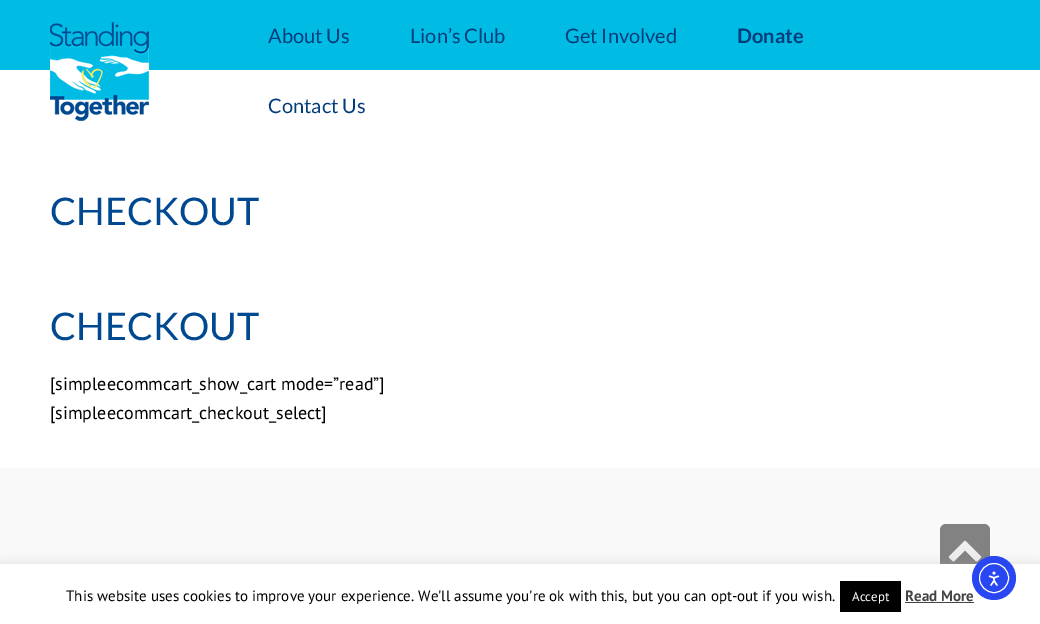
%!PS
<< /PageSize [1040 624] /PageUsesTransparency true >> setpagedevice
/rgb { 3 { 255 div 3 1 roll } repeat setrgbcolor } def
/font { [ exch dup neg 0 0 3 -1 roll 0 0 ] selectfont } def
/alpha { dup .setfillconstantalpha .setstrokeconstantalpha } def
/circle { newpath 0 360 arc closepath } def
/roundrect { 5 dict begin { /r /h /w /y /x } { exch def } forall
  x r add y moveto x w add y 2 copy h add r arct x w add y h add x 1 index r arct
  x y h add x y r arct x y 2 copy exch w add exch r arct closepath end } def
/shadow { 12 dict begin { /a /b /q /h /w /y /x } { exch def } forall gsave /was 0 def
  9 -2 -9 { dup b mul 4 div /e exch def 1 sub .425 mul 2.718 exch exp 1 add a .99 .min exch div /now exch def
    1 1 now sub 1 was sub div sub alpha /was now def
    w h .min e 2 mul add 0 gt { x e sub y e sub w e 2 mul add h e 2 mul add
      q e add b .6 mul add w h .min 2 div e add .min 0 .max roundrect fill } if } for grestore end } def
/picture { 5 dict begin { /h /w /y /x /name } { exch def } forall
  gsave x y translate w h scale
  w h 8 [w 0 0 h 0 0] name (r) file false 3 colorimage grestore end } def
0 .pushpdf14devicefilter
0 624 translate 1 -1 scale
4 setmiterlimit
255 255 255 rgb
0 0 1040 624 rectfill
0 188 228 rgb
0 0 1040 70 rectfill
(img/1.rgb) 50 22 99 99 picture
249 249 249 rgb
0 468 1040 96 rectfill
0.6 alpha
51 51 51 rgb
940 524 50 50 6 roundrect fill
1 alpha
(img/2.rgb) 948 540 34 22 picture
172 171 171 rgb
0 563 1040 60 0 5 0.3 shadow
[
  [0 564 1040 60 255 255 255]
  [840 581 61 31 0 0 0]
  [905 602 69 1 68 68 68]
] { aload pop rgb rectfill } forall
/Lato-Regular 20 font
0 61 122 rgb
[
  [(About Us) 268 43]
  [(Lion’s Club) 410 43]
  [(Get Involved) 565 43]
] { aload pop moveto show } forall
/Lato-Bold 20 font
737 43 moveto (Donate) show
/Lato-Regular 20 font
268 113 moveto (Contact Us) show
/Lato-Regular 38 font
0 73 144 rgb
50 225 moveto (CHECKOUT) show
50 340 moveto (CHECKOUT) show
/PTSans-Regular 18 font
0 0 0 rgb
50 390 moveto ([simpleecommcart_show_cart mode=”read”]) show
50 419 moveto ([simpleecommcart_checkout_select]) show
/PTSans-Regular 15 font
66 601 moveto (This website uses cookies to improve your experience. We'll assume you're ok with this, but you can opt-out if you wish.) show
/PTSans-Regular 13 font
255 255 255 rgb
852 601 moveto (Accept) show
/PTSans-Bold 15 font
68 68 68 rgb
905 601 moveto (Read More) show
40 71 243 rgb
994 578 22 circle fill
255 255 255 rgb
994 578 14.5 circle stroke
(img/3.rgb) 988 571 12 15 picture
.poppdf14devicefilter showpage
